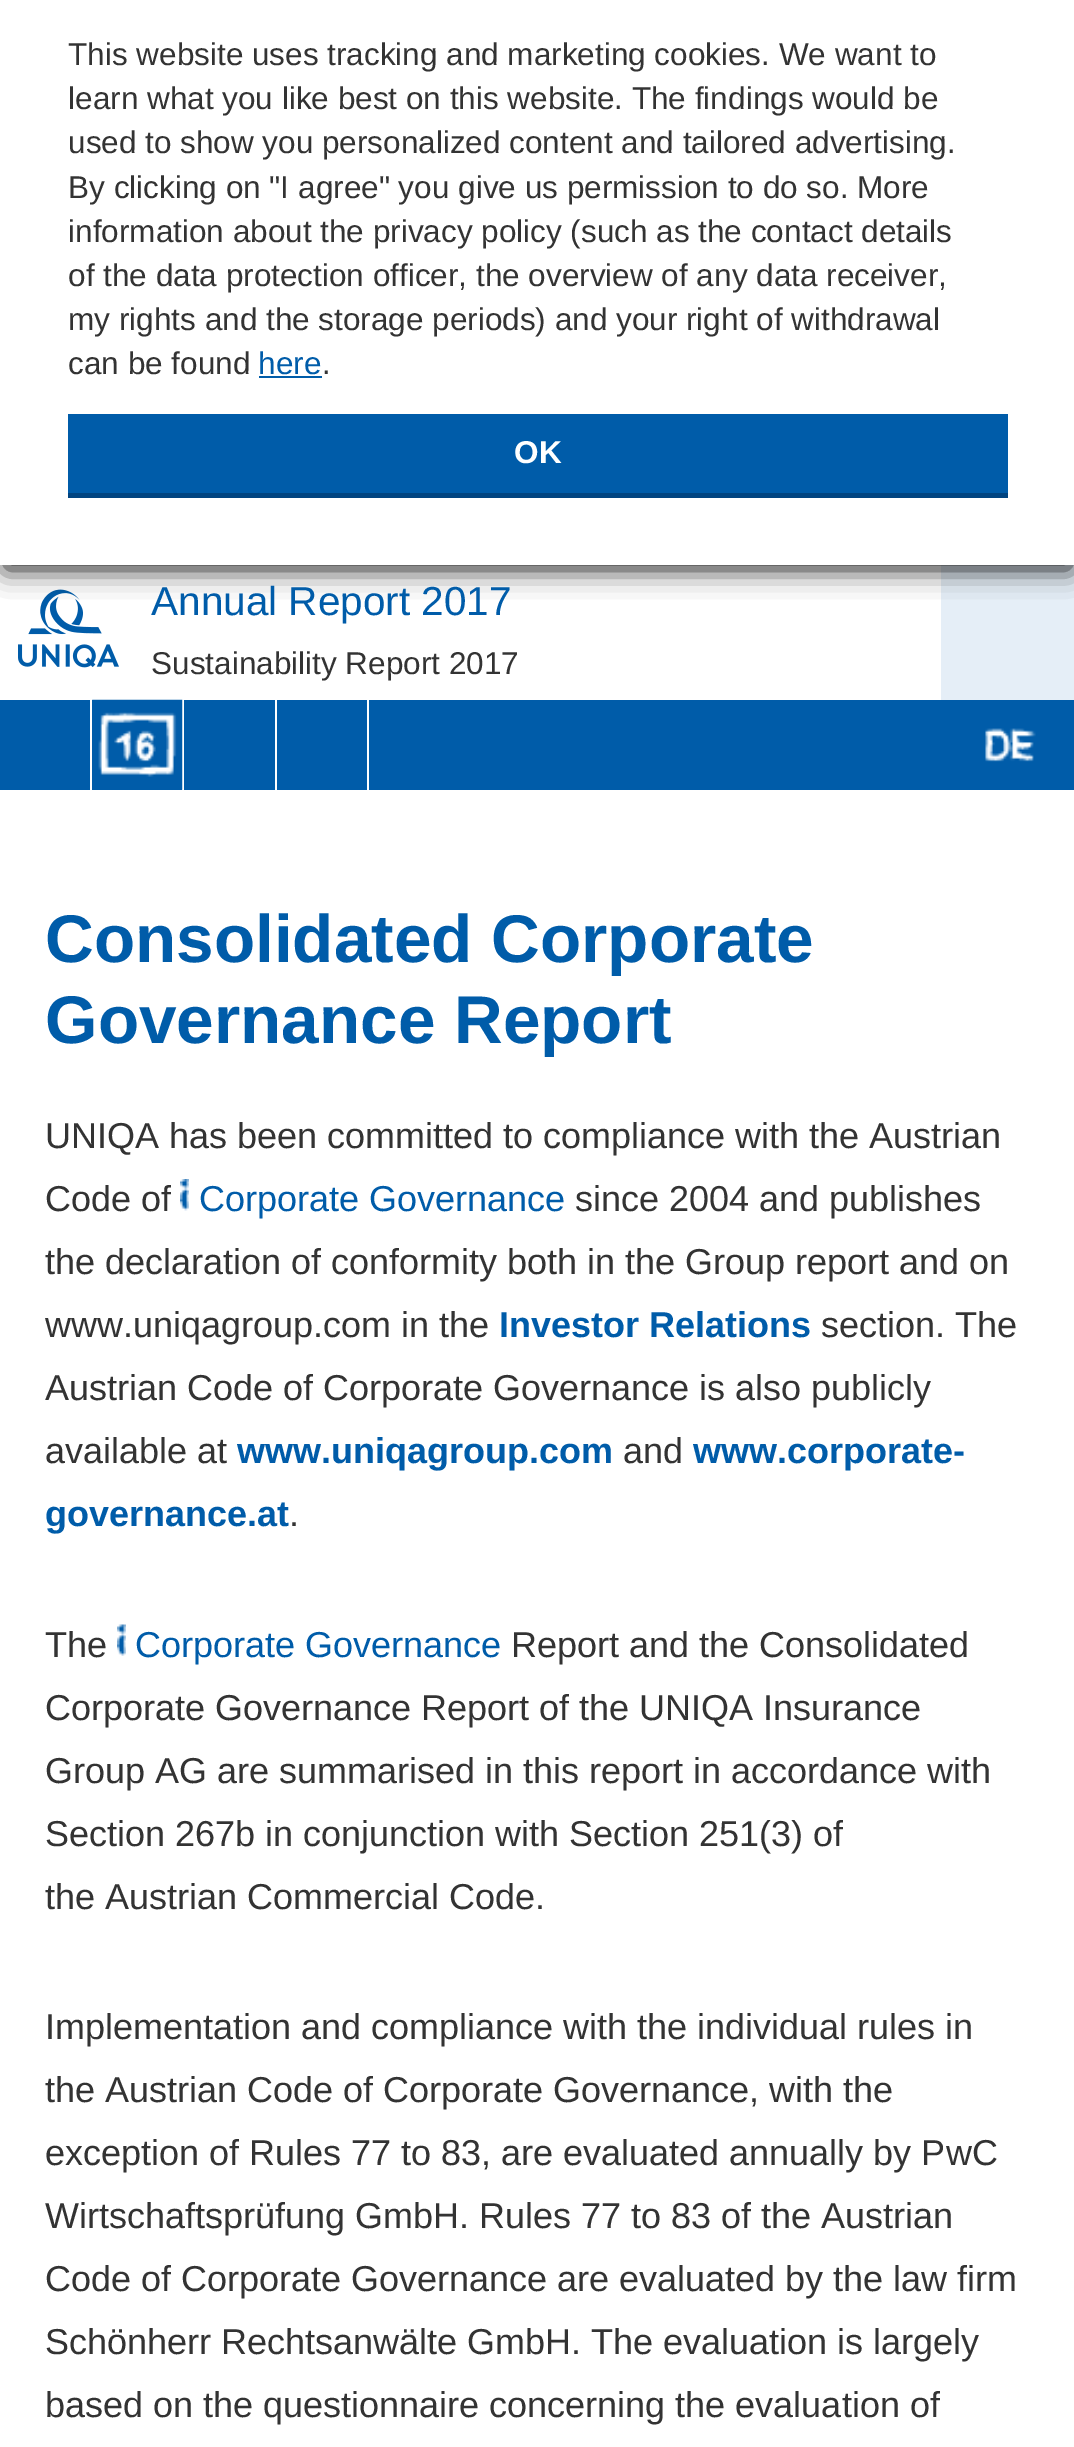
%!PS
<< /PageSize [1074 2447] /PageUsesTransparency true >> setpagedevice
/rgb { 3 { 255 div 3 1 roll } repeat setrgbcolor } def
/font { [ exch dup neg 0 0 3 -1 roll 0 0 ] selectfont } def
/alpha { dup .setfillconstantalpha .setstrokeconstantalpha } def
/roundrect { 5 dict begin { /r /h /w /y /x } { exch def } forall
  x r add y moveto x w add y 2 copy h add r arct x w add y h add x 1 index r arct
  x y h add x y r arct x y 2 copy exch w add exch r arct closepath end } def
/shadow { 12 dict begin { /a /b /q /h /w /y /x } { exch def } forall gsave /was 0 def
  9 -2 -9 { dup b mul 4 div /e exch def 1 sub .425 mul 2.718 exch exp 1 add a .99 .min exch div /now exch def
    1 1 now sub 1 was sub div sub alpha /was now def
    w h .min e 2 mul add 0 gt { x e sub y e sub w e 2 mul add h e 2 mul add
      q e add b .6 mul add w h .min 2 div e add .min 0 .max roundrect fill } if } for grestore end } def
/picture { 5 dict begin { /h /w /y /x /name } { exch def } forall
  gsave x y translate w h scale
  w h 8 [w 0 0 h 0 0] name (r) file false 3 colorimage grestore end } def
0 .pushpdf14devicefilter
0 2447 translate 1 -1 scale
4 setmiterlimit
255 255 255 rgb
0 0 1074 2447 rectfill
(img/1.rgb) 18 589 101 79 picture
229 238 247 rgb
941 565 133 135 rectfill
15 15 15 rgb
5 14 1066 555 0 13.5 1 shadow
[
  [0 0 1074 565 255 255 255]
  [259 376 63 2 0 92 169]
  [68 414 940 79 0 92 169]
  [68 493 940 5 1 68 128]
  [0 700 1074 90 0 92 169]
  [90 700 2 90 255 255 255]
  [182 700 2 90 255 255 255]
] { aload pop rgb rectfill } forall
(img/2.rgb) 92 699 91 91 picture
275 700 2 90 rectfill
367 700 2 90 rectfill
(img/3.rgb) 985 728 51 34 picture
(img/4.rgb) 180 1179 9 32 picture
(img/5.rgb) 117 1624 9 32 picture
/LiberationSans-Regular 31.5 font
51 51 51 rgb
[
  [(This website uses tracking and marketing cookies. We want to) 68 65]
  [(learn what you like best on this website. The findings would be) 68 109]
  [(used to show you personalized content and tailored advertising.) 68 153]
  [(By clicking on "I agree" you give us permission to do so. More) 68 198]
  [(information about the privacy policy \(such as the contact details) 68 242]
  [(of the data protection officer, the overview of any data receiver,) 68 286]
  [(my rights and the storage periods\) and your right of withdrawal) 68 330]
  [(can be found) 68 374]
] { aload pop moveto show } forall
0 92 169 rgb
258 374 moveto (here) show
51 51 51 rgb
322 374 moveto (.) show
/LiberationSans-Bold 31.5 font
255 255 255 rgb
514 463 moveto (OK) show
/LiberationSans-Regular 40.5 font
0 92 169 rgb
151 615 moveto (Annual Report 2017) show
/LiberationSans-Regular 31.5 font
51 51 51 rgb
151 674 moveto (Sustainability Report 2017) show
/LiberationSans-Bold 67.5 font
0 92 169 rgb
45 962 moveto (Consolidated Corporate) show
45 1043 moveto (Governance Report) show
/LiberationSans-Regular 36 font
51 51 51 rgb
45 1148 moveto (UNIQA has been committed to compliance with the Austrian) show
45 1211 moveto (Code of) show
0 92 169 rgb
199 1211 moveto (Corporate Governance) show
51 51 51 rgb
[
  [(since 2004 and publishes) 575 1211]
  [(the declaration of conformity both in the Group report and on) 45 1274]
  [(www.uniqagroup.com in the) 45 1337]
] { aload pop moveto show } forall
/LiberationSans-Bold 36 font
0 92 169 rgb
499 1337 moveto (Investor Relations) show
/LiberationSans-Regular 36 font
51 51 51 rgb
[
  [(section. The) 821 1337]
  [(Austrian Code of Corporate Governance is also publicly) 45 1400]
  [(available at) 45 1463]
] { aload pop moveto show } forall
/LiberationSans-Bold 36 font
0 92 169 rgb
237 1463 moveto (www.uniqagroup.com) show
/LiberationSans-Regular 36 font
51 51 51 rgb
623 1463 moveto (and) show
/LiberationSans-Bold 36 font
0 92 169 rgb
693 1463 moveto (www.corporate-) show
45 1526 moveto (governance.at) show
/LiberationSans-Regular 36 font
51 51 51 rgb
289 1526 moveto (.) show
45 1657 moveto (The) show
0 92 169 rgb
135 1657 moveto (Corporate Governance) show
51 51 51 rgb
[
  [(Report and the Consolidated) 511 1657]
  [(Corporate Governance Report of the UNIQA Insurance) 45 1720]
  [(Group AG are summarised in this report in accordance with) 45 1783]
  [(Section 267b in conjunction with Section 251\(3\) of) 45 1846]
  [(the Austrian Commercial Code.) 45 1909]
  [(Implementation and compliance with the individual rules in) 45 2039]
  [(the Austrian Code of Corporate Governance, with the) 45 2102]
  [(exception of Rules 77 to 83, are evaluated annually by PwC) 45 2165]
  [(Wirtschaftsprüfung GmbH. Rules 77 to 83 of the Austrian) 45 2228]
  [(Code of Corporate Governance are evaluated by the law firm) 45 2291]
  [(Schönherr Rechtsanwälte GmbH. The evaluation is largely) 45 2354]
  [(based on the questionnaire concerning the evaluation of) 45 2417]
] { aload pop moveto show } forall
.poppdf14devicefilter showpage
